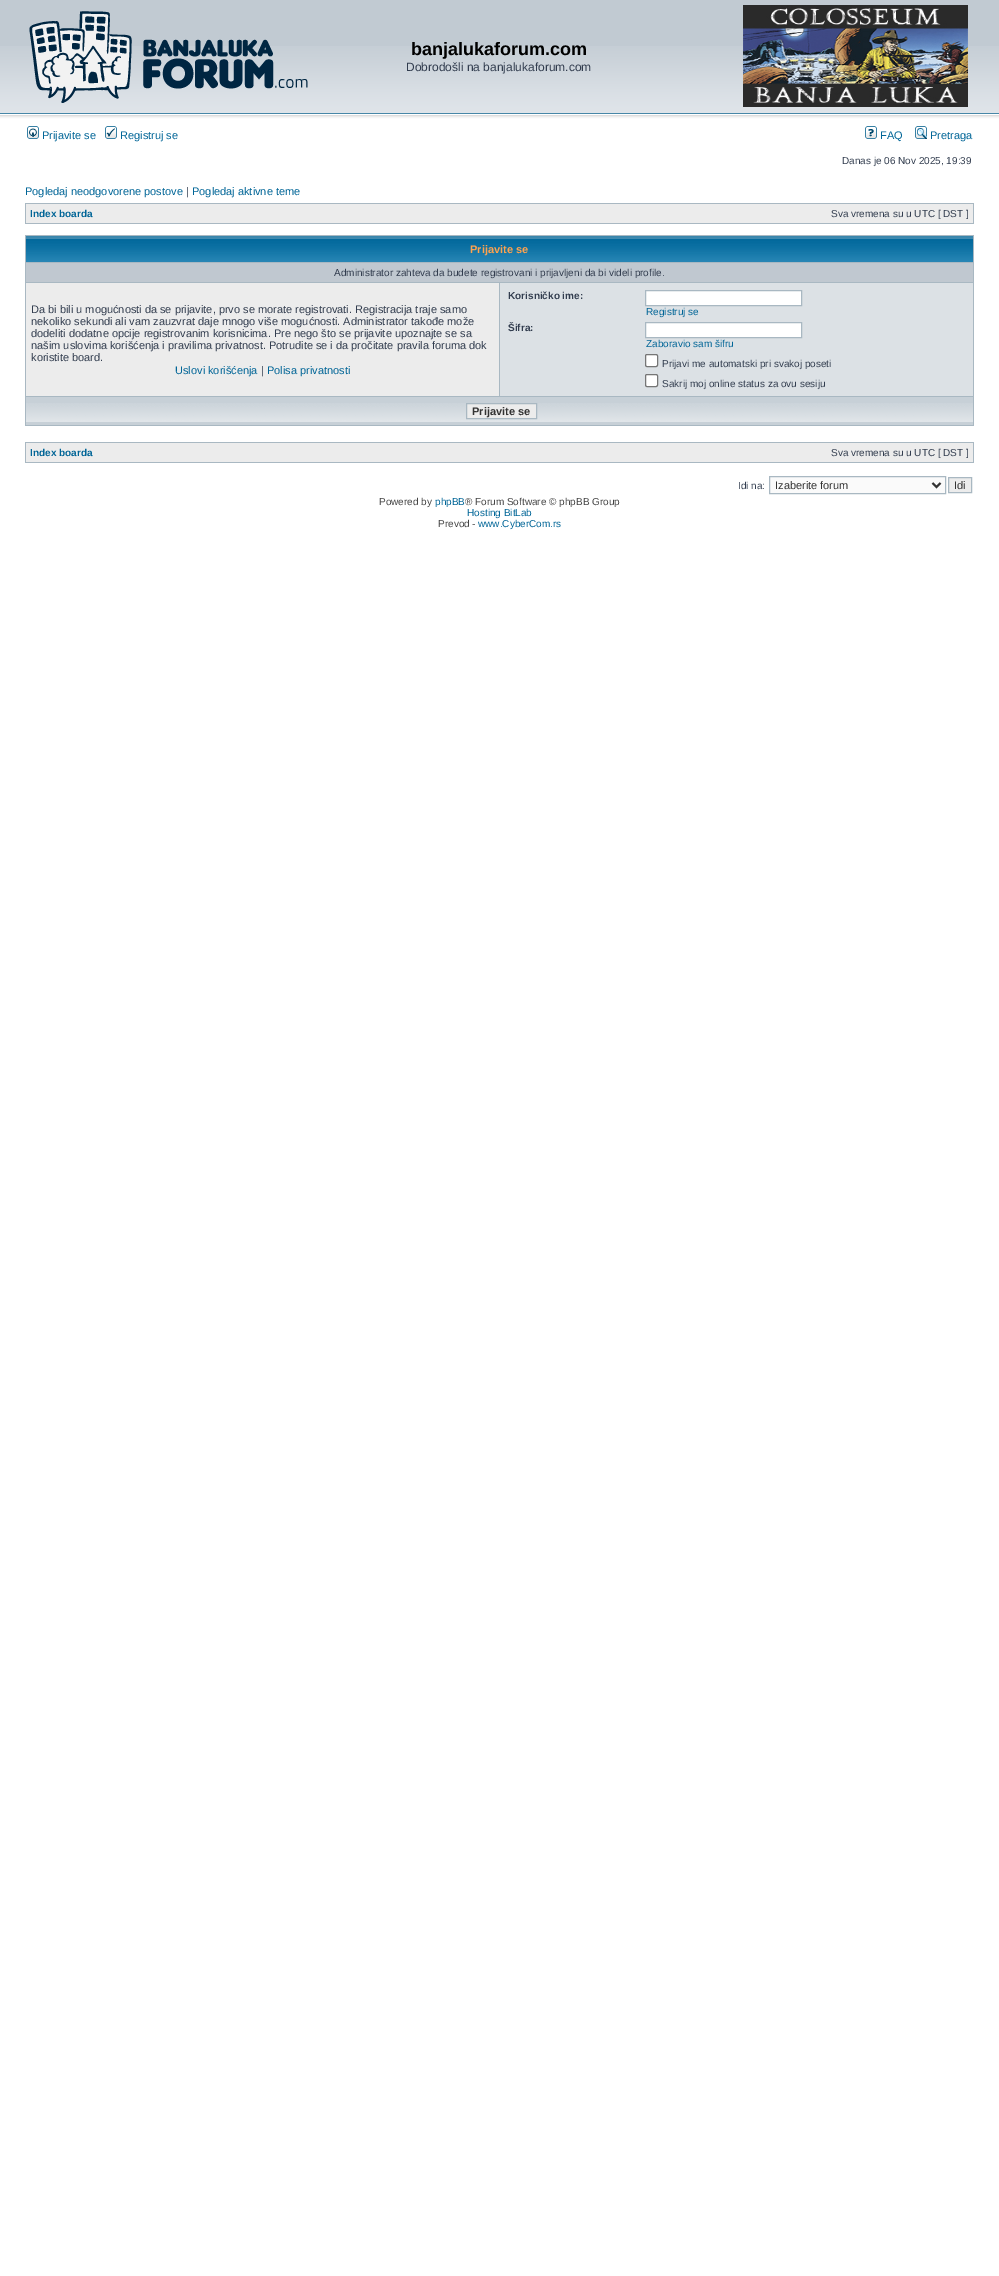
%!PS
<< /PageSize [999 2276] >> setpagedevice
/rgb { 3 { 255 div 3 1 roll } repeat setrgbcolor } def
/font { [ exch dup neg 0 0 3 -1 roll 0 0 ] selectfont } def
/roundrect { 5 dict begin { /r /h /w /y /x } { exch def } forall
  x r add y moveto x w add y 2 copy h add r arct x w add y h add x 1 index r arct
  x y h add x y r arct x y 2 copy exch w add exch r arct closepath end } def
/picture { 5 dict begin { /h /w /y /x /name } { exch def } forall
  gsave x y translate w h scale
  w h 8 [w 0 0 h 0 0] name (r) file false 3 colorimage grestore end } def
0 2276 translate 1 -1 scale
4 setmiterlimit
255 255 255 rgb
0 0 999 2276 rectfill
193 202 210 rgb
0 0 999 46 rectfill
(img/1.rgb) 0 46 999 78 picture
(img/2.rgb) 29 11 279 92 picture
(img/3.rgb) 743 5 225 102 picture
(img/4.rgb) 27 126 12 13 picture
(img/5.rgb) 105 126 12 13 picture
(img/6.rgb) 865 126 12 13 picture
(img/7.rgb) 915 126 12 13 picture
[
  [25 203 949 21 169 184 194]
  [26 204 947 19 236 236 236]
  [25 235 949 191 169 184 194]
] { aload pop rgb rectfill } forall
(img/8.rgb) 26 236 947 26 picture
[
  [26 263 947 19 192 200 208]
  [26 283 473 113 236 236 236]
  [500 283 473 113 220 225 229]
] { aload pop rgb rectfill } forall
255 255 255 rgb
645.5 290.5 moveto 801.5 290.5 lineto 801.5 305.5 lineto 645.5 305.5 lineto closepath gsave fill grestore
169 184 194 rgb
stroke
255 255 255 rgb
645.5 322.5 moveto 801.5 322.5 lineto 801.5 337.5 lineto 645.5 337.5 lineto closepath gsave fill grestore
169 184 194 rgb
stroke
255 255 255 rgb
645.5 354.5 12 12 1.5 roundrect gsave fill grestore
118 118 118 rgb
stroke
255 255 255 rgb
645.5 374.5 12 12 1.5 roundrect gsave fill grestore
118 118 118 rgb
stroke
199 208 215 rgb
26 397 947 28 rectfill
(img/9.rgb) 26 403 947 19 picture
236 236 236 rgb
466.5 403.5 moveto 536.5 403.5 lineto 536.5 418.5 lineto 466.5 418.5 lineto closepath gsave fill grestore
169 184 194 rgb
stroke
25 442 949 21 rectfill
236 236 236 rgb
26 443 947 19 rectfill
250 250 250 rgb
769.5 476.5 moveto 945.5 476.5 lineto 945.5 493.5 lineto 769.5 493.5 lineto closepath gsave fill grestore
169 184 194 rgb
stroke
51 51 51 rgb
2 setlinewidth
932.5 483 moveto 936.5 487 lineto 940.5 483 lineto stroke
236 236 236 rgb
948.5 477.5 moveto 971.5 477.5 lineto 971.5 492.5 lineto 948.5 492.5 lineto closepath gsave fill grestore
169 184 194 rgb
1 setlinewidth
stroke
/LiberationSans-Bold 18 font
0 0 0 rgb
411 55 moveto (banjalukaforum.com) show
/LiberationSans-Regular 12 font
50 61 79 rgb
406 71 moveto (Dobrodošli na banjalukaforum.com) show
/LiberationSans-Regular 11 font
0 101 151 rgb
[
  [(Prijavite se) 42 139]
  [(Registruj se) 120 139]
  [(FAQ) 880 139]
  [(Pretraga) 930 139]
] { aload pop moveto show } forall
/LiberationSans-Regular 10 font
50 61 79 rgb
842 164 moveto (Danas je 06 Nov 2025, 19:39) show
/LiberationSans-Regular 11 font
0 101 151 rgb
25 195 moveto (Pogledaj neodgovorene postove) show
50 61 79 rgb
186 195 moveto (|) show
0 101 151 rgb
192 195 moveto (Pogledaj aktivne teme) show
/LiberationSans-Bold 10 font
30 217 moveto (Index boarda) show
/LiberationSans-Regular 10 font
50 61 79 rgb
831 217 moveto (Sva vremena su u UTC [ DST ]) show
/LiberationSans-Bold 11 font
255 163 79 rgb
470 253 moveto (Prijavite se) show
/LiberationSans-Regular 10 font
50 61 79 rgb
334 276 moveto (Administrator zahteva da budete registrovani i prijavljeni da bi videli profile.) show
/LiberationSans-Regular 11 font
[
  [(Da bi bili u mogućnosti da se prijavite, prvo se morate registrovati. Registracija traje samo) 31 313]
  [(nekoliko sekundi ali vam zauzvrat daje mnogo više mogućnosti. Administrator takođe može) 31 325]
  [(dodeliti dodatne opcije registrovanim korisnicima. Pre nego što se prijavite upoznajte se sa) 31 337]
  [(našim uslovima korišćenja i pravilima privatnost. Potrudite se i da pročitate pravila foruma dok) 31 349]
  [(koristite board.) 31 361]
] { aload pop moveto show } forall
0 101 151 rgb
175 374 moveto (Uslovi korišćenja) show
50 61 79 rgb
261 374 moveto (|) show
0 101 151 rgb
267 374 moveto (Polisa privatnosti) show
/LiberationSans-Bold 10 font
50 61 79 rgb
508 299 moveto (Korisničko ime:) show
/LiberationSans-Regular 10 font
0 101 151 rgb
646 315 moveto (Registruj se) show
/LiberationSans-Bold 10 font
50 61 79 rgb
508 331 moveto (Šifra:) show
/LiberationSans-Regular 10 font
0 101 151 rgb
646 347 moveto (Zaboravio sam šifru) show
50 61 79 rgb
662 367 moveto (Prijavi me automatski pri svakoj poseti) show
662 387 moveto (Sakrij moj online status za ovu sesiju) show
/LiberationSans-Bold 11 font
51 51 51 rgb
472 415 moveto (Prijavite se) show
/LiberationSans-Bold 10 font
0 101 151 rgb
30 456 moveto (Index boarda) show
/LiberationSans-Regular 10 font
50 61 79 rgb
831 456 moveto (Sva vremena su u UTC [ DST ]) show
738 489 moveto (Idi na:) show
/LiberationSans-Regular 11 font
51 51 51 rgb
775 489 moveto (Izaberite forum) show
954 489 moveto (Idi) show
/LiberationSans-Regular 10 font
68 68 68 rgb
379 505 moveto (Powered by) show
0 101 151 rgb
435 505 moveto (phpBB) show
68 68 68 rgb
465 505 moveto (® Forum Software © phpBB Group) show
0 101 151 rgb
467 516 moveto (Hosting BitLab) show
68 68 68 rgb
438 527 moveto (Prevod -) show
0 101 151 rgb
478 527 moveto (www.CyberCom.rs) show
showpage
